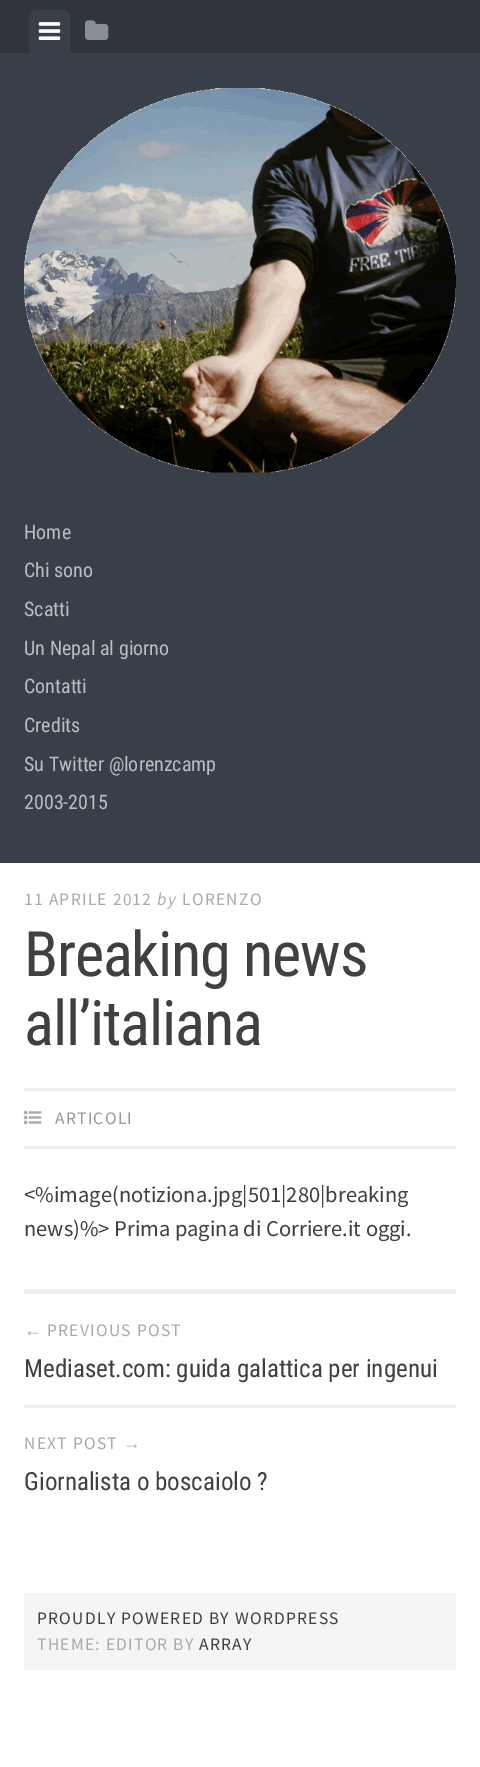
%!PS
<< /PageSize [480 1767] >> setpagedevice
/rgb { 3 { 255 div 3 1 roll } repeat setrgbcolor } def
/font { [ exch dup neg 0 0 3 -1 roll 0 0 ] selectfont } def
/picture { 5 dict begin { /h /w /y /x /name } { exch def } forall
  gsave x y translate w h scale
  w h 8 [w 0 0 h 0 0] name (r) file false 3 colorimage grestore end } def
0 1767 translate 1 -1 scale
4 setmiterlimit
255 255 255 rgb
0 0 480 1767 rectfill
56 63 73 rgb
0 53 480 810 rectfill
48 53 60 rgb
0 0 480 53 rectfill
56 63 73 rgb
37 10 moveto 62 10 lineto 66.5 10 70 13.5 70 18 curveto 70 53 lineto 29 53 lineto 29 18 lineto 29 13.5 32.5 10 37 10 curveto closepath fill
(img/1.rgb) 38 22 23 18 picture
(img/2.rgb) 85 20 24 20 picture
(img/3.rgb) 24 88 432 385 picture
238 238 238 rgb
24 1088 432 3 rectfill
24 1146 432 3 rectfill
(img/4.rgb) 23 1110 19 15 picture
[
  [24 1289 432 5 238 238 238]
  [24 1405 432 3 238 238 238]
  [24 1593 432 77 245 245 245]
] { aload pop rgb rectfill } forall
/RobotoCondensed-Regular 20 font
186 191 197 rgb
[
  [(Home) 24 539]
  [(Chi sono) 24 577]
  [(Scatti) 24 616]
  [(Un Nepal al giorno) 24 655]
  [(Contatti) 24 693]
  [(Credits) 24 732]
  [(Su Twitter @lorenzcamp) 24 771]
  [(2003-2015) 24 809]
] { aload pop moveto show } forall
/SourceSansPro-Regular 17.5 font
170 170 170 rgb
24 905 moveto 1.25 0 (11 APRILE 2012) ashow
/SourceSansPro-Italic 17.5 font
157 905 moveto 1.25 0 (by) ashow
/SourceSansPro-Regular 17.5 font
182 905 moveto 1.25 0 (LORENZO) ashow
/RobotoCondensed-Regular 62.5 font
64 64 64 rgb
24 976 moveto -1.25 0 (Breaking news) ashow
24 1045 moveto -1.25 0 (all’italiana) ashow
/SourceSansPro-Regular 17.5 font
153 153 153 rgb
55 1124 moveto 1.25 0 (ARTICOLI) ashow
/SourceSansPro-Regular 22.5 font
64 64 64 rgb
24 1202 moveto (<%image\(notiziona.jpg|501|280|breaking) show
24 1236 moveto (news\)%> Prima pagina di Corriere.it oggi.) show
/LiberationSans-Regular 17.5 font
170 170 170 rgb
24 1336 moveto 1.25 0 (←) ashow
/SourceSansPro-Regular 17.5 font
47 1336 moveto 1.25 0 (PREVIOUS POST) ashow
/RobotoCondensed-Regular 25 font
64 64 64 rgb
24 1377 moveto (Mediaset.com: guida galattica per ingenui) show
/SourceSansPro-Regular 17.5 font
170 170 170 rgb
24 1449 moveto 1.25 0 (NEXT POST) ashow
/LiberationSans-Regular 17.5 font
123 1449 moveto 1.25 0 (→) ashow
/RobotoCondensed-Regular 25 font
64 64 64 rgb
24 1490 moveto (Giornalista o boscaiolo ?) show
/SourceSansPro-Regular 17.5 font
37 1624 moveto 1.25 0 (PROUDLY POWERED BY WORDPRESS) ashow
170 170 170 rgb
37 1650 moveto 1.25 0 (THEME: EDITOR BY) ashow
64 64 64 rgb
199 1650 moveto 1.25 0 (ARRAY) ashow
showpage
